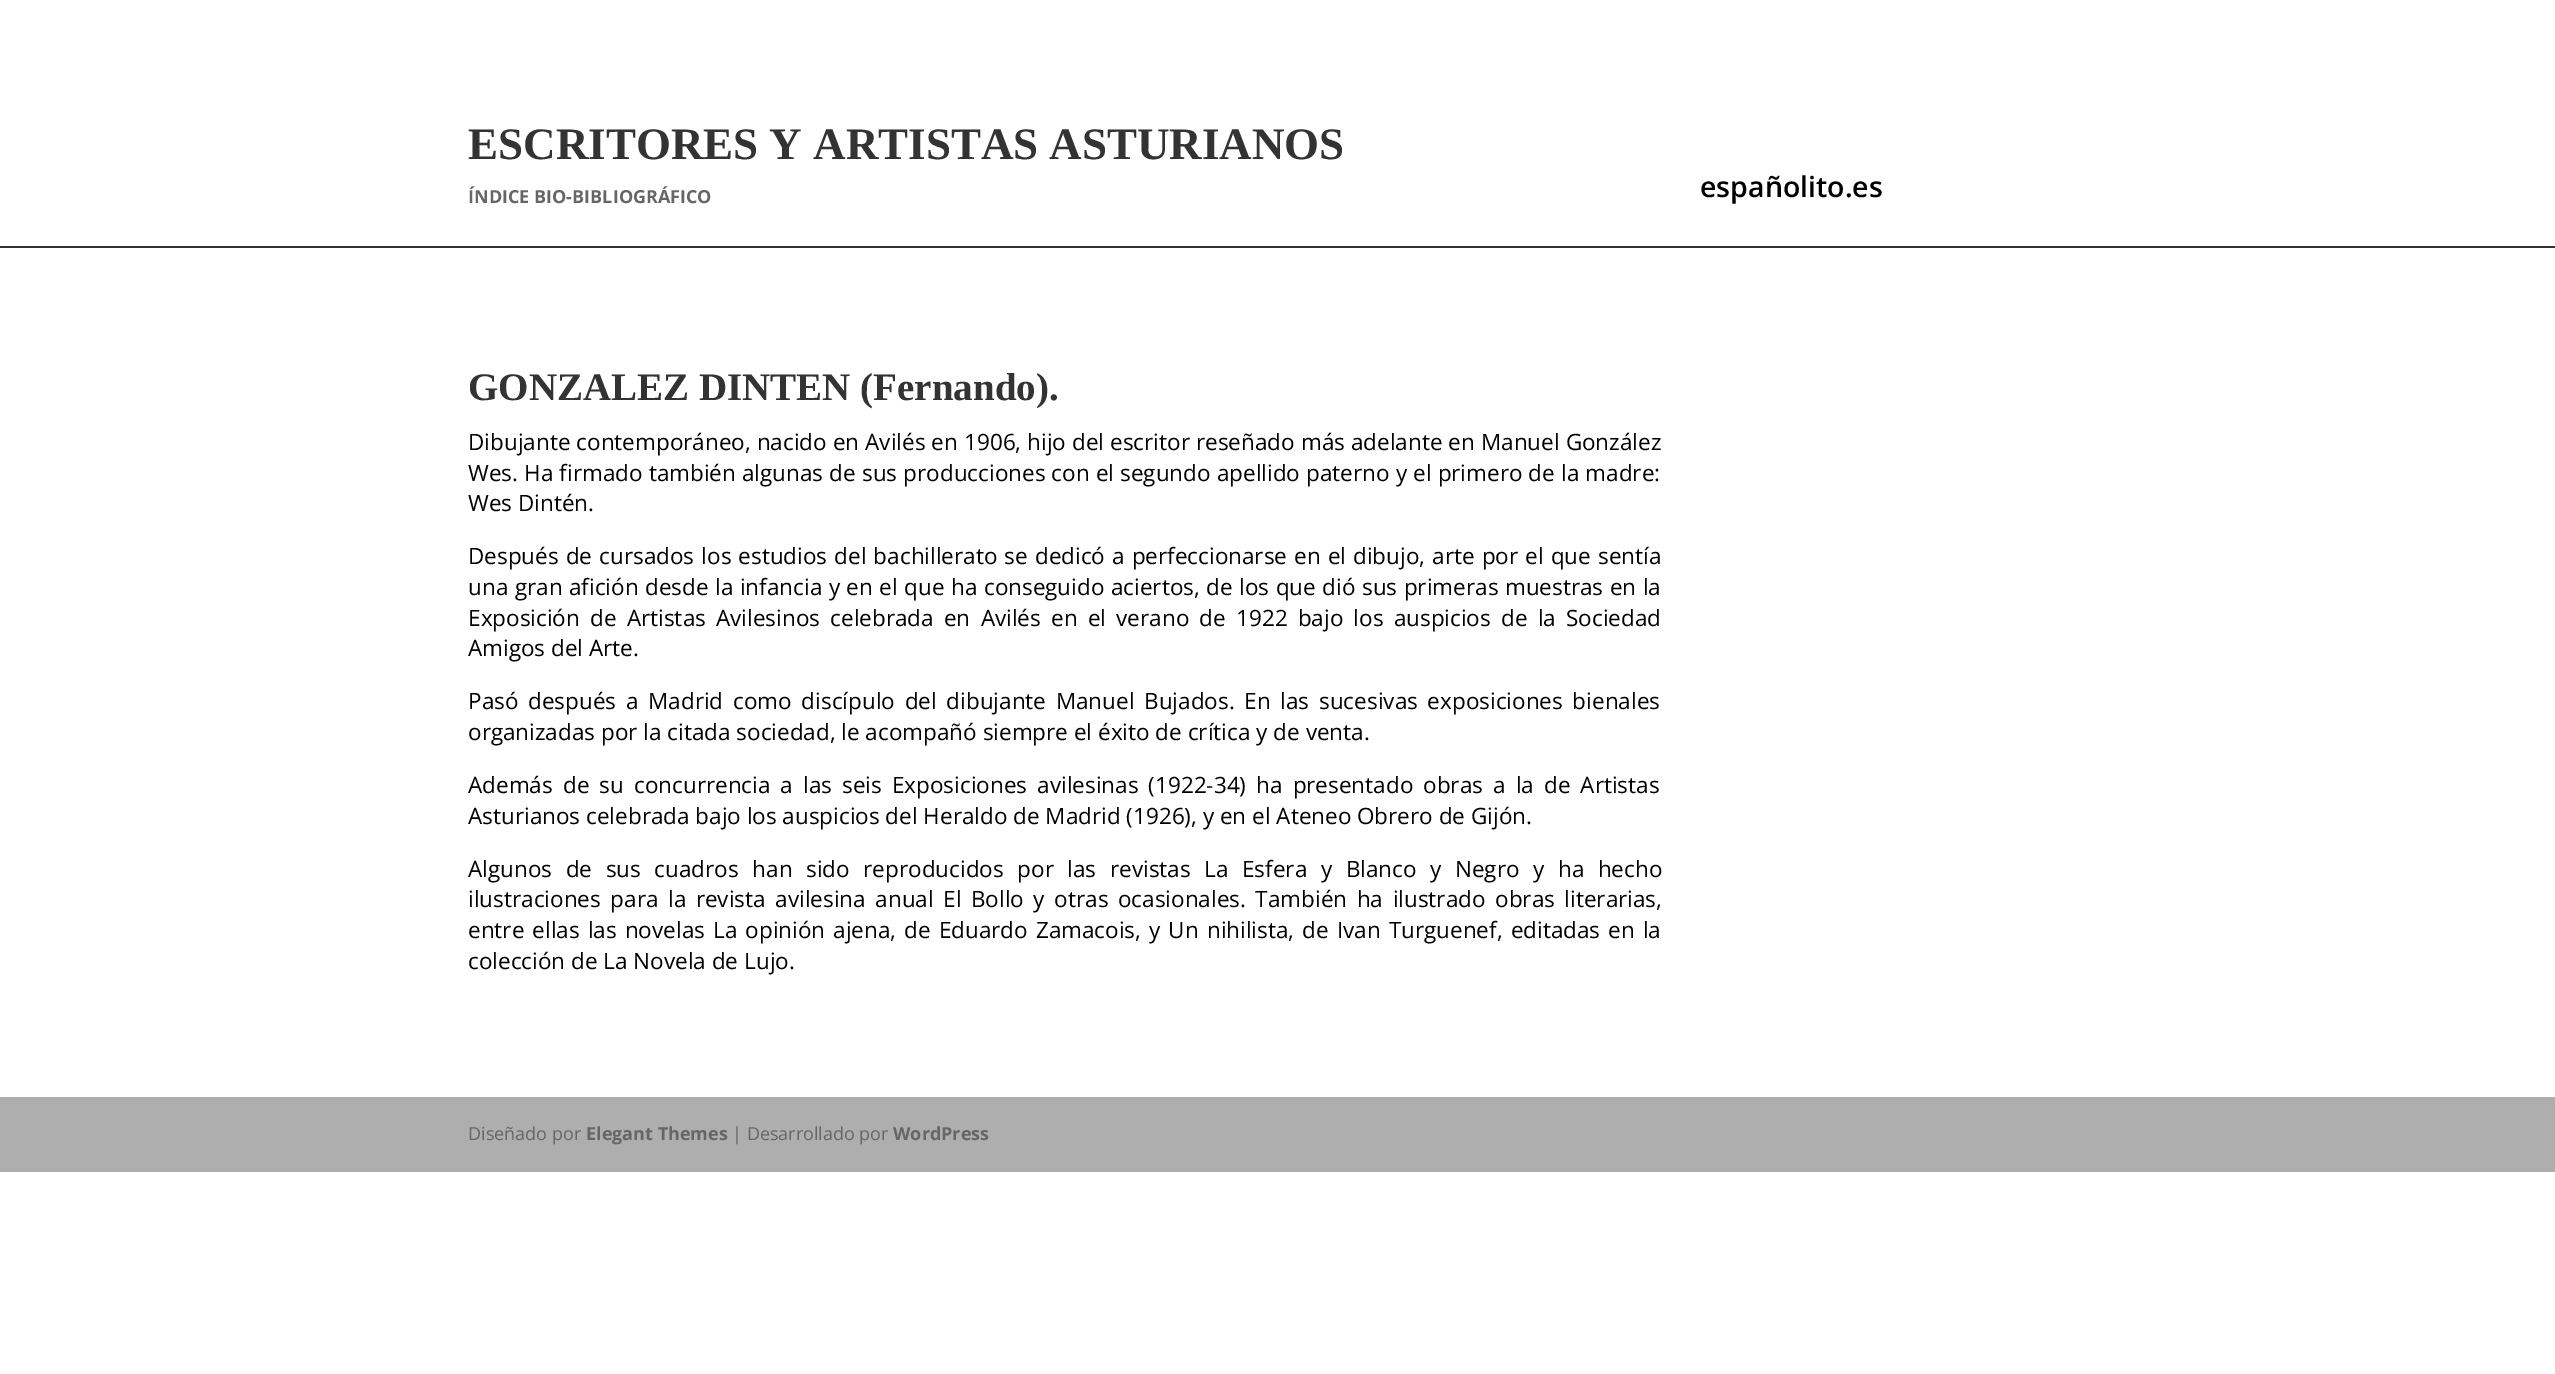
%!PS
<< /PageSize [2555 1374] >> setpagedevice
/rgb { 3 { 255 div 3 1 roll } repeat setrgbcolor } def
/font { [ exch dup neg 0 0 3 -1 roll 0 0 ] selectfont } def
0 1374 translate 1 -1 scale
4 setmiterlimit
255 255 255 rgb
0 0 2555 1374 rectfill
51 51 51 rgb
0 246 2555 2 rectfill
174 174 174 rgb
0 1097 2555 75 rectfill
/LiberationSerif-Bold 45 font
51 51 51 rgb
468 159 moveto (ESCRITORES Y ARTISTAS ASTURIANOS) show
/OpenSans-Bold 18 font
102 102 102 rgb
468 203 moveto (ÍNDICE BIO-BIBLIOGRÁFICO) show
/OpenSans-SemiBold 28.5 font
0 0 0 rgb
1700 197 moveto (españolito.es) show
/LiberationSerif-Bold 39 font
51 51 51 rgb
468 400 moveto (GONZALEZ DINTEN \(Fernando\).) show
/OpenSans-Regular 22.5 font
0 0 0 rgb
468 450 moveto 0.2 0 32 (Dibujante contemporáneo, nacido en Avilés en 1906, hijo del escritor reseñado más adelante en Manuel González) widthshow
468 481 moveto 0.3 0 32 (Wes. Ha firmado también algunas de sus producciones con el segundo apellido paterno y el primero de la madre:) widthshow
468 511 moveto (Wes Dintén.) show
468 564 moveto 1.25 0 32 (Después de cursados los estudios del bachillerato se dedicó a perfeccionarse en el dibujo, arte por el que sentía) widthshow
468 595 moveto 0.7 0 32 (una gran afición desde la infancia y en el que ha conseguido aciertos, de los que dió sus primeras muestras en la) widthshow
468 626 moveto 4.4 0 32 (Exposición de Artistas Avilesinos celebrada en Avilés en el verano de 1922 bajo los auspicios de la Sociedad) widthshow
468 656 moveto (Amigos del Arte.) show
468 709 moveto 3.9 0 32 (Pasó después a Madrid como discípulo del dibujante Manuel Bujados. En las sucesivas exposiciones bienales) widthshow
468 740 moveto (organizadas por la citada sociedad, le acompañó siempre el éxito de crítica y de venta.) show
468 793 moveto 4.25 0 32 (Además de su concurrencia a las seis Exposiciones avilesinas \(1922-34\) ha presentado obras a la de Artistas) widthshow
468 824 moveto (Asturianos celebrada bajo los auspicios del Heraldo de Madrid \(1926\), y en el Ateneo Obrero de Gijón.) show
468 877 moveto 7.75 0 32 (Algunos de sus cuadros han sido reproducidos por las revistas La Esfera y Blanco y Negro y ha hecho) widthshow
468 907 moveto 3.75 0 32 (ilustraciones para la revista avilesina anual El Bollo y otras ocasionales. También ha ilustrado obras literarias,) widthshow
468 938 moveto 2.25 0 32 (entre ellas las novelas La opinión ajena, de Eduardo Zamacois, y Un nihilista, de Ivan Turguenef, editadas en la) widthshow
468 969 moveto (colección de La Novela de Lujo.) show
/OpenSans-Regular 18 font
102 102 102 rgb
468 1140 moveto (Diseñado por) show
/OpenSans-Bold 18 font
586 1140 moveto (Elegant Themes) show
/OpenSans-Regular 18 font
732 1140 moveto (| Desarrollado por) show
/OpenSans-Bold 18 font
893 1140 moveto (WordPress) show
showpage
